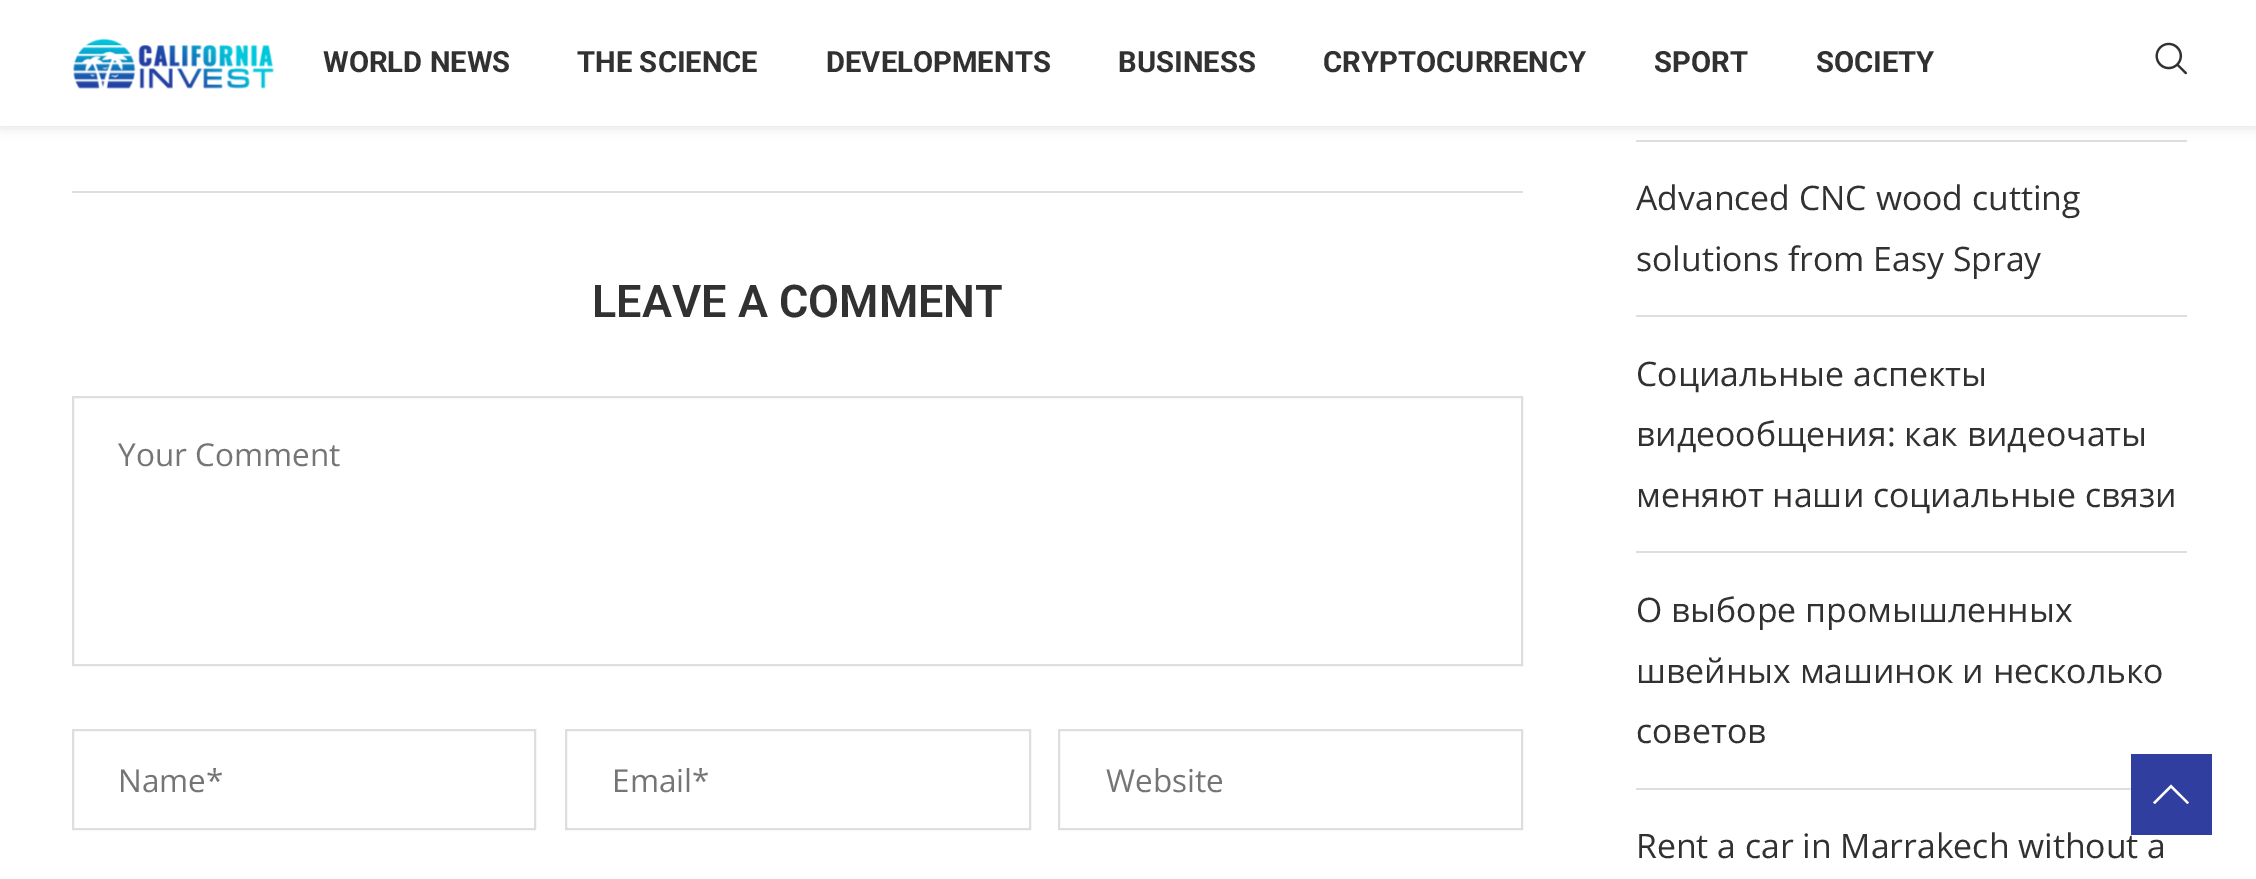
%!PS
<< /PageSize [2256 879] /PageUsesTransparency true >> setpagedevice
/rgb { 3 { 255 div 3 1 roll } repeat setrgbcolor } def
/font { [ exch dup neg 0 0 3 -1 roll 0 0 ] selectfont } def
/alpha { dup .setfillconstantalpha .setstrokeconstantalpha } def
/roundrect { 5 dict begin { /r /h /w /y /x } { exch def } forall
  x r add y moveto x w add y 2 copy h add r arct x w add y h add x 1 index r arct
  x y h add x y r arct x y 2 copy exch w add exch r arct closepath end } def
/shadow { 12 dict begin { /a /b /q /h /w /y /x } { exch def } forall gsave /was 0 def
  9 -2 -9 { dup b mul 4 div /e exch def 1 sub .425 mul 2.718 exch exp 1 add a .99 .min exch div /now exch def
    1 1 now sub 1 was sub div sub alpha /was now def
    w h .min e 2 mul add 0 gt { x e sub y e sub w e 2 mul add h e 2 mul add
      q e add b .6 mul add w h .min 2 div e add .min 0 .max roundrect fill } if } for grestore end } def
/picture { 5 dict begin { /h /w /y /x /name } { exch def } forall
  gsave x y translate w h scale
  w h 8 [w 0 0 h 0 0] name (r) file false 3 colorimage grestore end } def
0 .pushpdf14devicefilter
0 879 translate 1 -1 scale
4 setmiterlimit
255 255 255 rgb
0 0 2256 879 rectfill
222 222 222 rgb
1636 140 551 2 rectfill
190 190 190 rgb
0 2 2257 126 0 5.5 0.46 shadow
255 255 255 rgb
0 0 2256 126 rectfill
(img/1.rgb) 72 38 202 51 picture
(img/2.rgb) 2155 42 32 33 picture
222 222 222 rgb
72 191 1451 2 rectfill
2 setlinewidth
73 397 1449 268 rectstroke
73 730 462 99 rectstroke
566 730 464 99 rectstroke
1059 730 463 99 rectstroke
[
  [1636 315 551 2 222 222 222]
  [1636 551 551 2 222 222 222]
  [1636 788 495 2 222 222 222]
] { aload pop rgb rectfill } forall
/Roboto-Bold 29.25 font
49 49 49 rgb
[
  [(WORLD NEWS) 323 72]
  [(THE SCIENCE) 577 72]
  [(DEVELOPMENTS) 826 72]
  [(BUSINESS) 1118 72]
  [(CRYPTOCURRENCY) 1323 72]
  [(SPORT) 1654 72]
  [(SOCIETY) 1816 72]
] { aload pop moveto show } forall
/Roboto-SemiBold 45 font
592 317 moveto (LEAVE A COMMENT) show
/OpenSans-Regular 31.5 font
117 117 117 rgb
[
  [(Your Comment) 118 466]
  [(Name*) 118 792]
  [(Email*) 612 792]
  [(Website) 1106 792]
] { aload pop moveto show } forall
/OpenSans-Regular 33.75 font
49 49 49 rgb
[
  [(Advanced CNC wood cutting) 1636 210]
  [(solutions from Easy Spray) 1636 271]
  [(Социальные аспекты) 1636 386]
  [(видеообщения: как видеочаты) 1636 446]
  [(меняют наши социальные связи) 1636 507]
  [(О выборе промышленных) 1636 622]
  [(швейных машинок и несколько) 1636 683]
  [(советов) 1636 743]
  [(Rent a car in Marrakech without a) 1636 858]
] { aload pop moveto show } forall
48 63 159 rgb
2131 754 81 81 rectfill
255 255 255 rgb
2171 784.5 moveto 2153 802.5 lineto 2155 804 lineto 2171 788 lineto 2187.5 804 lineto 2189 802.5 lineto closepath fill
.poppdf14devicefilter showpage
